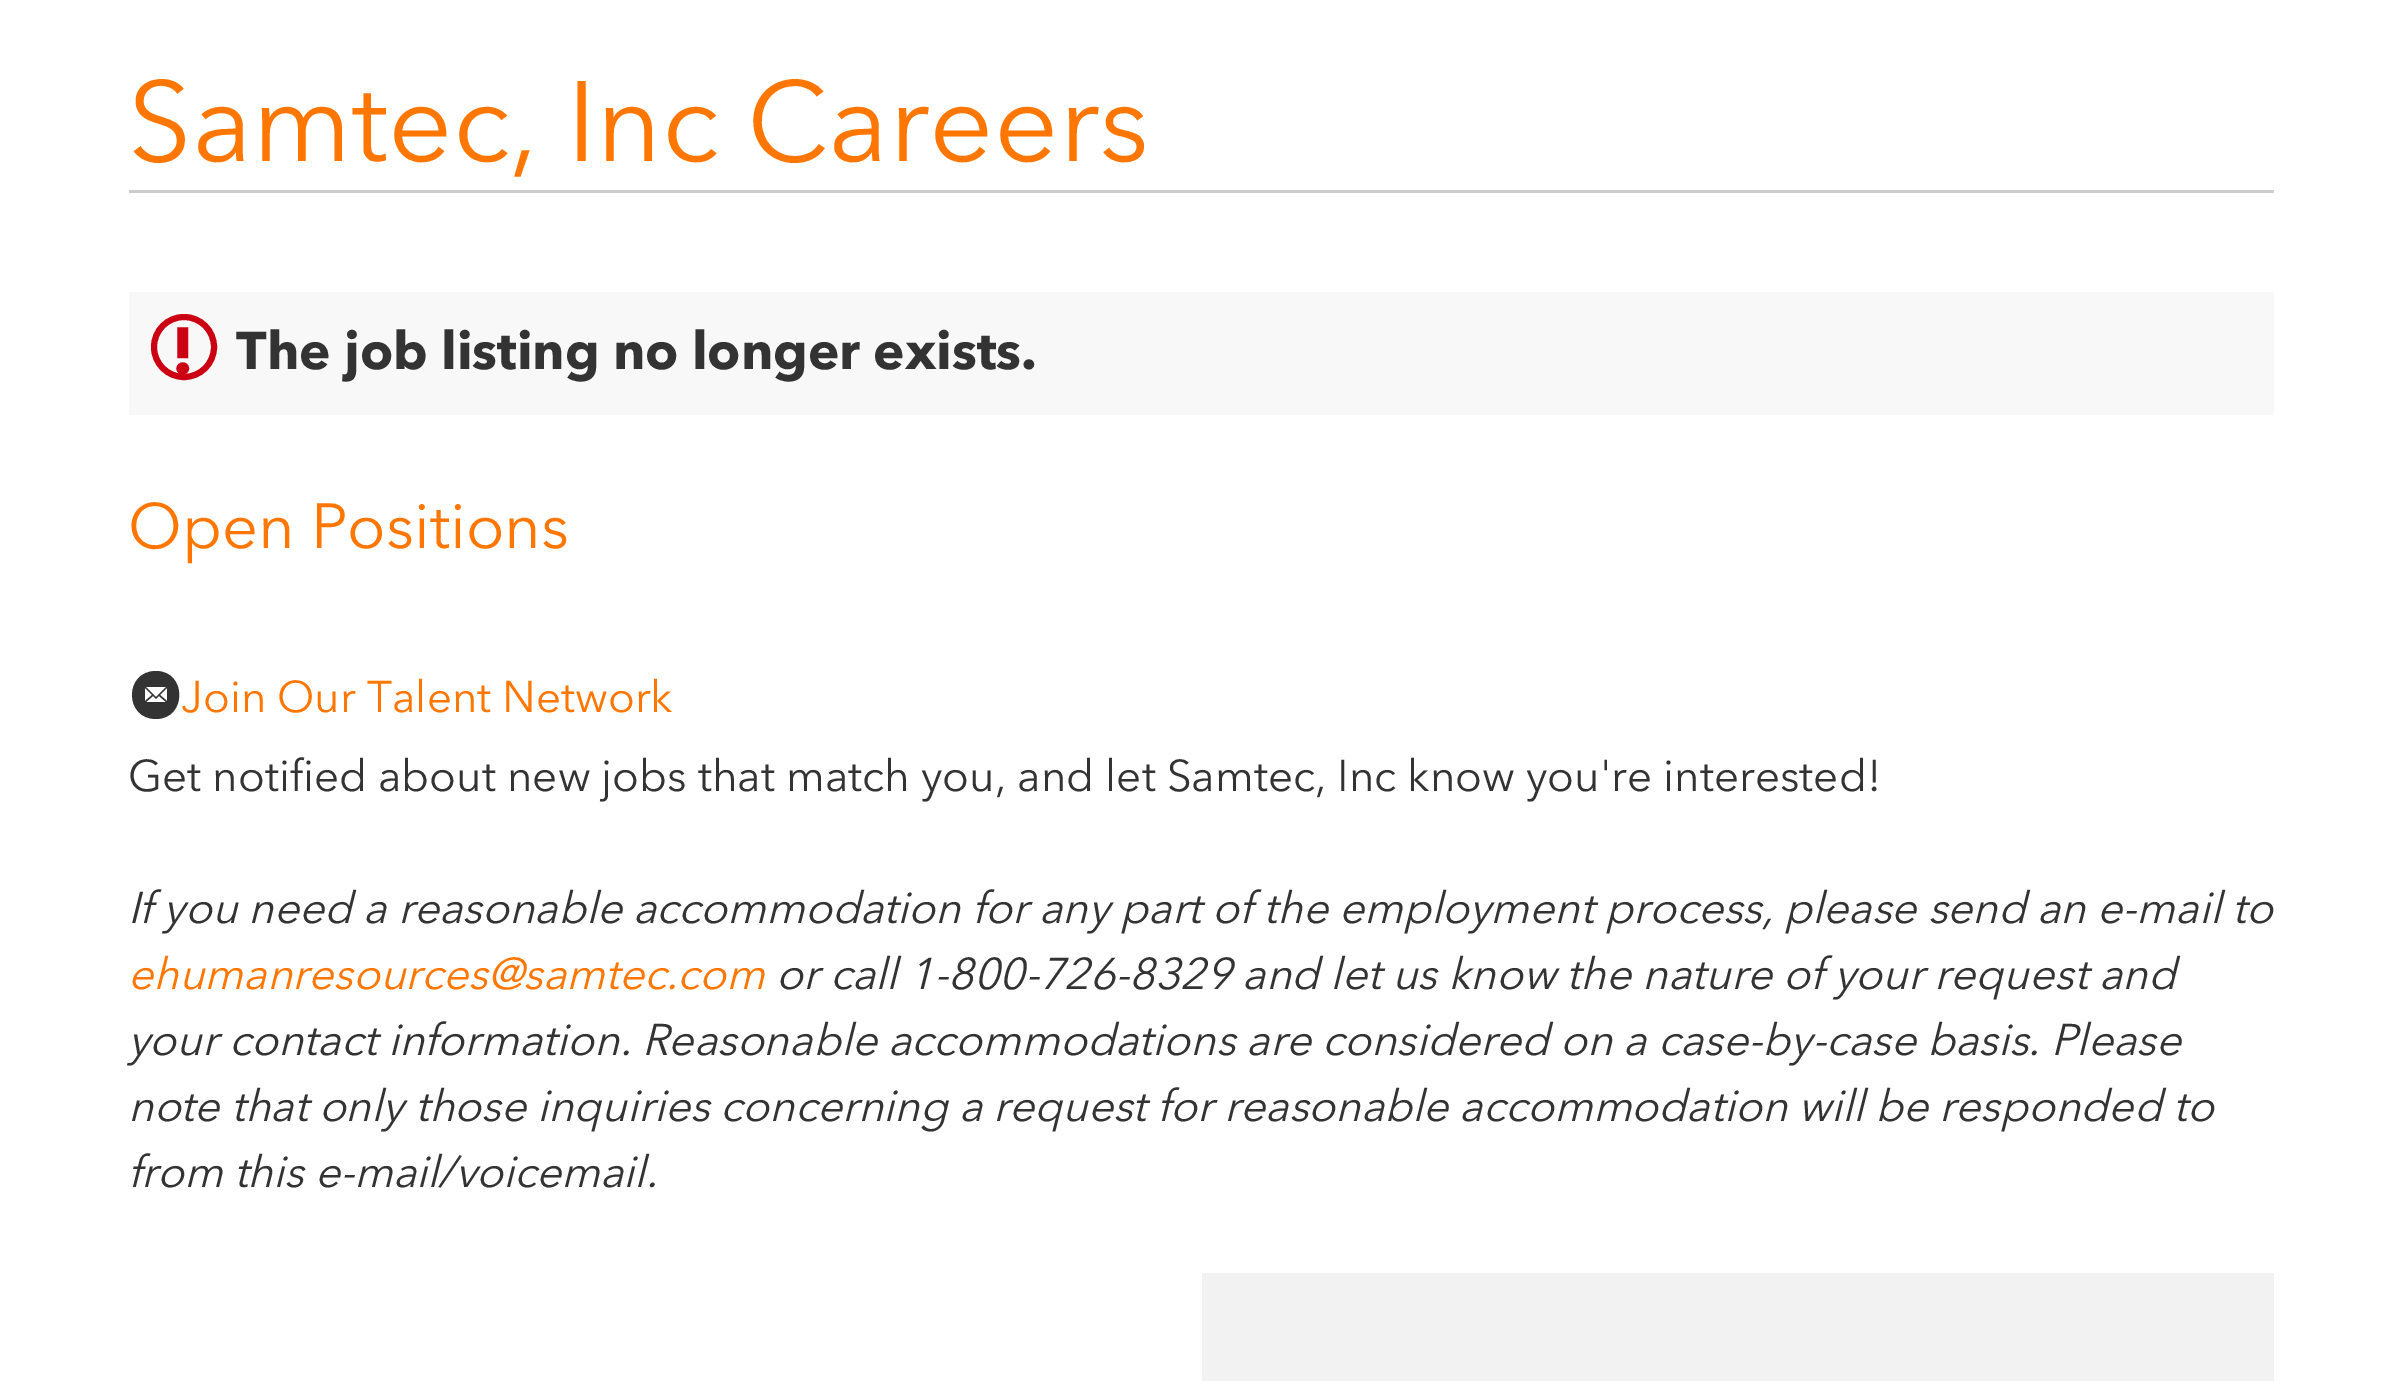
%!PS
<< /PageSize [2399 1381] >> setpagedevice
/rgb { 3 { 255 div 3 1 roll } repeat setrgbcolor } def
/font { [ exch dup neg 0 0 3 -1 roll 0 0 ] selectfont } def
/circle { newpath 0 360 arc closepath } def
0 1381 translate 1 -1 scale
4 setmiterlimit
255 255 255 rgb
0 0 2399 1381 rectfill
204 204 204 rgb
129 190 2145 3 rectfill
248 248 248 rgb
129 292 2145 123 rectfill
203 0 19 rgb
6 setlinewidth
184 347 30 circle stroke
51 51 51 rgb
156 671 moveto 124 671 124 719 156 719 curveto 187 719 187 671 156 671 curveto closepath 146 687 moveto 166 687 lineto 156 697 lineto closepath 145 701 moveto 145 688 lineto 152 695 lineto closepath 146 702 moveto 153 696 lineto 156 699 lineto 159 696 lineto 166 702 lineto closepath 167 701 moveto 160 695 lineto 167 688 lineto closepath fill
242 242 242 rgb
1202 1273 1072 108 rectfill
/AvenirNext-Regular 113.1 font
255 119 0 rgb
128 161 moveto (Samtec, Inc Careers) show
/AvenirNext-Bold 66 font
203 0 19 rgb
171 374 moveto (!) show
/AvenirNext-Bold 52.75 font
51 51 51 rgb
236 369 moveto (The job listing no longer exists.) show
/AvenirNext-Regular 63.25 font
255 119 0 rgb
128 548 moveto (Open Positions) show
/AvenirNext-Regular 44 font
181 712 moveto (Join Our Talent Network) show
51 51 51 rgb
128 791 moveto (Get notified about new jobs that match you, and let Samtec, Inc know you're interested!) show
/AvenirNext-Italic 44 font
128 923 moveto (If you need a reasonable accommodation for any part of the employment process, please send an e-mail to) show
255 119 0 rgb
128 989 moveto (ehumanresources@samtec.com) show
51 51 51 rgb
[
  [(or call 1-800-726-8329 and let us know the nature of your request and) 776 989]
  [(your contact information. Reasonable accommodations are considered on a case-by-case basis. Please) 128 1055]
  [(note that only those inquiries concerning a request for reasonable accommodation will be responded to) 128 1121]
  [(from this e-mail/voicemail.) 128 1187]
] { aload pop moveto show } forall
showpage
